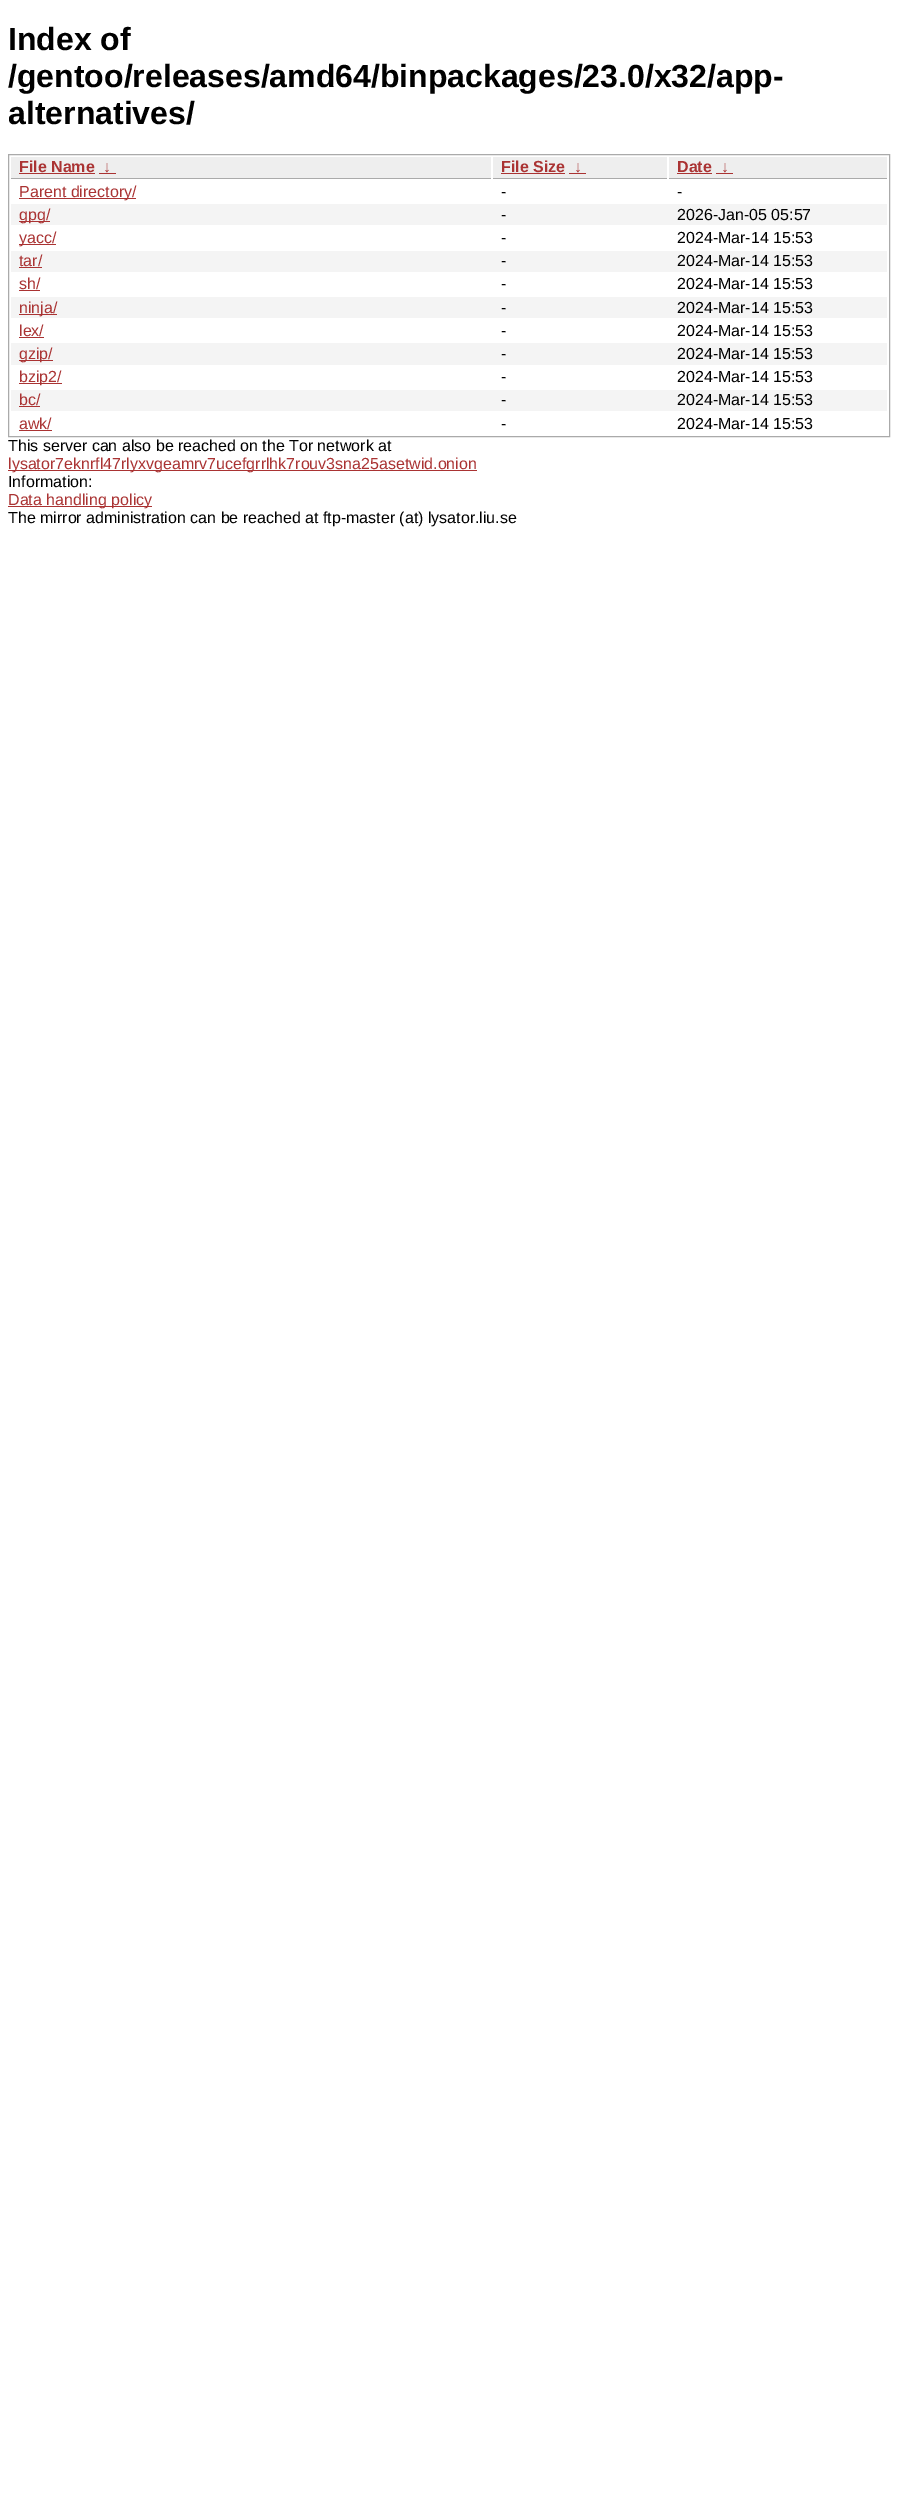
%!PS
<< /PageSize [898 2502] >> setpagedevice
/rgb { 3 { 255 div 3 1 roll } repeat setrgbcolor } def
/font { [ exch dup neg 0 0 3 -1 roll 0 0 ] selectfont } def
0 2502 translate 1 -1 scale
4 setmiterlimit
255 255 255 rgb
0 0 898 2502 rectfill
170 170 170 rgb
8.5 154.5 881 282 rectstroke
[
  [11 157 480 21 238 238 238]
  [11 178 480 1 170 170 170]
  [19 173 76 1 170 51 51]
  [99 173 17 1 170 51 51]
  [493 157 174 21 238 238 238]
  [493 178 174 1 170 170 170]
  [501 173 64 1 170 51 51]
  [569 173 17 1 170 51 51]
  [669 157 218 21 238 238 238]
  [669 178 218 1 170 170 170]
  [677 173 35 1 170 51 51]
  [716 173 17 1 170 51 51]
  [19 198 117 1 170 51 51]
  [11 204 876 21 244 244 244]
  [19 221 31 1 170 51 51]
  [19 244 37 1 170 51 51]
  [11 251 876 21 244 244 244]
  [19 267 23 1 170 51 51]
  [19 290 21 1 170 51 51]
  [11 297 876 21 244 244 244]
  [19 314 38 1 170 51 51]
  [19 337 25 1 170 51 51]
  [11 343 876 22 244 244 244]
  [19 360 34 1 170 51 51]
  [19 383 43 1 170 51 51]
  [11 390 876 21 244 244 244]
  [19 406 21 1 170 51 51]
  [19 430 33 1 170 51 51]
  [8 470 469 1 170 51 51]
  [8 506 144 1 170 51 51]
] { aload pop rgb rectfill } forall
/LiberationSans-Bold 32 font
0 0 0 rgb
[
  [(Index of) 8 50]
  [(/gentoo/releases/amd64/binpackages/23.0/x32/app-) 8 87]
  [(alternatives/) 8 124]
] { aload pop moveto show } forall
/LiberationSans-Bold 16 font
170 51 51 rgb
[
  [(File Name) 19 172]
  [(↓) 103 172]
  [(File Size) 501 172]
  [(↓) 574 172]
  [(Date) 677 172]
  [(↓) 721 172]
] { aload pop moveto show } forall
/LiberationSans-Regular 16 font
19 197 moveto (Parent directory/) show
0 0 0 rgb
501 197 moveto (-) show
677 197 moveto (-) show
170 51 51 rgb
19 220 moveto (gpg/) show
0 0 0 rgb
501 220 moveto (-) show
677 220 moveto (2026-Jan-05 05:57) show
170 51 51 rgb
19 243 moveto (yacc/) show
0 0 0 rgb
501 243 moveto (-) show
677 243 moveto (2024-Mar-14 15:53) show
170 51 51 rgb
19 266 moveto (tar/) show
0 0 0 rgb
501 266 moveto (-) show
677 266 moveto (2024-Mar-14 15:53) show
170 51 51 rgb
19 289 moveto (sh/) show
0 0 0 rgb
501 289 moveto (-) show
677 289 moveto (2024-Mar-14 15:53) show
170 51 51 rgb
19 313 moveto (ninja/) show
0 0 0 rgb
501 313 moveto (-) show
677 313 moveto (2024-Mar-14 15:53) show
170 51 51 rgb
19 336 moveto (lex/) show
0 0 0 rgb
501 336 moveto (-) show
677 336 moveto (2024-Mar-14 15:53) show
170 51 51 rgb
19 359 moveto (gzip/) show
0 0 0 rgb
501 359 moveto (-) show
677 359 moveto (2024-Mar-14 15:53) show
170 51 51 rgb
19 382 moveto (bzip2/) show
0 0 0 rgb
501 382 moveto (-) show
677 382 moveto (2024-Mar-14 15:53) show
170 51 51 rgb
19 405 moveto (bc/) show
0 0 0 rgb
501 405 moveto (-) show
677 405 moveto (2024-Mar-14 15:53) show
170 51 51 rgb
19 429 moveto (awk/) show
0 0 0 rgb
[
  [(-) 501 429]
  [(2024-Mar-14 15:53) 677 429]
  [(This server can also be reached on the Tor network at) 8 451]
] { aload pop moveto show } forall
170 51 51 rgb
8 469 moveto (lysator7eknrfl47rlyxvgeamrv7ucefgrrlhk7rouv3sna25asetwid.onion) show
0 0 0 rgb
8 487 moveto (Information:) show
170 51 51 rgb
8 505 moveto (Data handling policy) show
0 0 0 rgb
8 523 moveto (The mirror administration can be reached at ftp-master \(at\) lysator.liu.se) show
showpage
